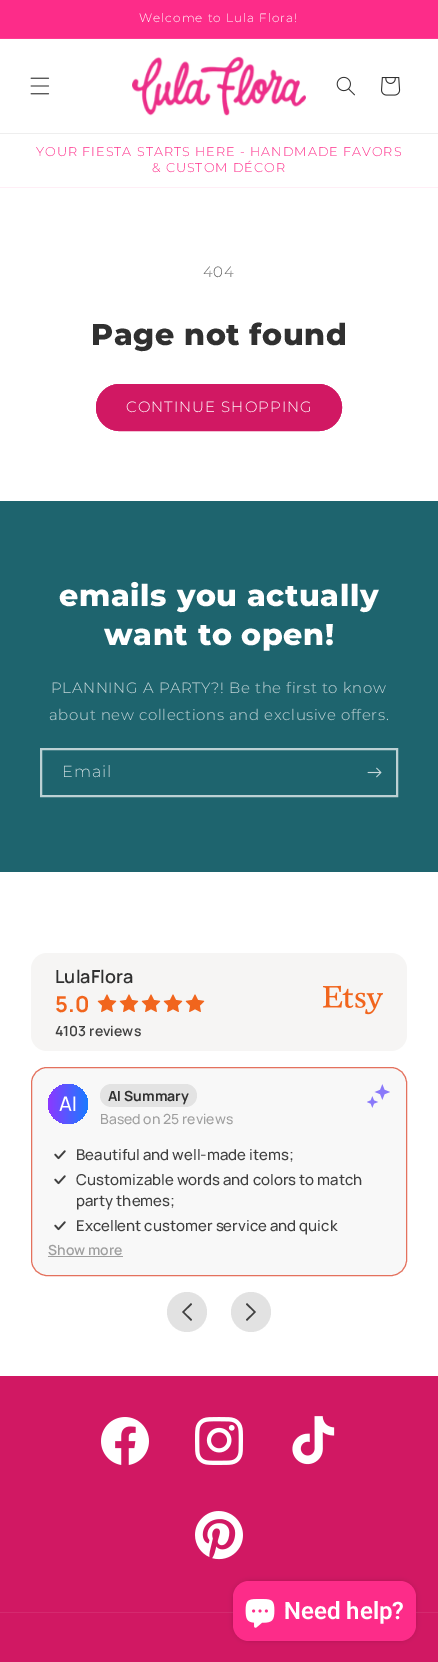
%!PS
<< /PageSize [438 1662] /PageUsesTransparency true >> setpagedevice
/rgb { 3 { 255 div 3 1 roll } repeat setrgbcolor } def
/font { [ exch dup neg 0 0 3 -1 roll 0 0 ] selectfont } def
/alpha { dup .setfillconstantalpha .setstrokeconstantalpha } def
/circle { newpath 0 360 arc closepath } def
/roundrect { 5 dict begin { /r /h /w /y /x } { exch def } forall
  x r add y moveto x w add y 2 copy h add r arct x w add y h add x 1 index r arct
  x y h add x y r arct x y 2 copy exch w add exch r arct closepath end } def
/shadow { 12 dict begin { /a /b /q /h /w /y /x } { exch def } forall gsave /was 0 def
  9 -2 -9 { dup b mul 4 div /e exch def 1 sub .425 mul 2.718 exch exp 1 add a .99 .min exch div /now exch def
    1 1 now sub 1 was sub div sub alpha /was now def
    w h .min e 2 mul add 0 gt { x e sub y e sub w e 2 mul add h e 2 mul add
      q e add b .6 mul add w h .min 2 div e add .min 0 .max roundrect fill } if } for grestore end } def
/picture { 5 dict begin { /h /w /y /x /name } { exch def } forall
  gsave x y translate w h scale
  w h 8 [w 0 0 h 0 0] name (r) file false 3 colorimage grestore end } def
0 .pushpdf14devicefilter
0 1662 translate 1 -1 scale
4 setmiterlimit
255 255 255 rgb
0 0 438 1662 rectfill
[
  [0 0 438 38 253 44 137]
  [0 38 438 1 253 61 146]
  [0 133 438 1 238 238 238]
] { aload pop rgb rectfill } forall
(img/1.rgb) 30 77 20 18 picture
(img/2.rgb) 132 56 174 60 picture
(img/3.rgb) 336 76 19 20 picture
(img/4.rgb) 381 77 20 19 picture
255 238 246 rgb
0 187 438 1 rectfill
209 24 99 rgb
96 384 246 47 23.5 roundrect fill
96.5 384.5 245 46 23 roundrect stroke
30 100 110 rgb
0 501 438 371 rectfill
188 209 212 rgb
2 setlinewidth
41 749 356 47 rectstroke
(img/5.rgb) 367 767 15 11 picture
246 245 244 rgb
31 953 376 98 16 roundrect fill
(img/6.rgb) 97 994 20 18 picture
(img/6.rgb) 119 994 20 18 picture
(img/6.rgb) 141 994 20 18 picture
(img/6.rgb) 163 994 20 18 picture
(img/6.rgb) 185 994 20 18 picture
(img/7.rgb) 323 985 60 30 picture
248 248 248 rgb
31.5 1067.5 375 208 15.5 roundrect gsave fill grestore
228 113 93 rgb
1 setlinewidth
stroke
gsave 68 1104 20 circle clip newpath
<< /ShadingType 2 /ColorSpace /DeviceRGB /Coords [48 1104 88 1104] /Extend [true true] /Function << /FunctionType 2 /Domain [0 1] /C0 [0.553 0.22 1] /C1 [0.098 0.482 1] /N 1 >> >> shfill grestore
227 227 227 rgb
100 1084 97 23 11.5 roundrect fill
(img/8.rgb) 367 1084 23 24 picture
(img/9.rgb) 54 1150 12 10 picture
(img/9.rgb) 54 1175 12 10 picture
(img/9.rgb) 54 1221 12 10 picture
159 159 159 rgb
48 1256 75 1 rectfill
226 226 226 rgb
187 1312 20 circle fill
64 64 64 rgb
192 1319.5 moveto 191 1321 lineto 182 1312 lineto 191 1303 lineto 192 1304.5 lineto 184 1312 lineto closepath fill
226 226 226 rgb
251 1312 20 circle fill
64 64 64 rgb
246 1304.5 moveto 247 1303 lineto 256 1312 lineto 247 1321 lineto 246 1319.5 lineto 254 1312 lineto closepath fill
209 24 99 rgb
0 1376 438 286 rectfill
(img/10.rgb) 101 1417 48 48 picture
(img/11.rgb) 195 1417 48 48 picture
(img/12.rgb) 292 1416 43 49 picture
(img/13.rgb) 195 1511 48 49 picture
213 42 111 rgb
0 1612 438 1 rectfill
0 0 0 rgb
233 1581 183 60 16 2.5 0.15 shadow
253 44 137 rgb
233 1581 183 60 16 roundrect fill
(img/14.rgb) 245 1599 30 29 picture
/Montserrat-Light 12 font
255 255 255 rgb
139 22 moveto 1 0 (Welcome to Lula Flora!) ashow
/Montserrat-Light 12.75 font
253 44 137 rgb
36 156 moveto 1 0 (YOUR FIESTA STARTS HERE - HANDMADE FAVORS) ashow
152 172 moveto 1 0 (& CUSTOM DÉCOR) ashow
/Montserrat-Light 15 font
100 100 100 rgb
203 277 moveto 0.6 0 (404) ashow
/Montserrat-ExtraBold 30 font
48 48 48 rgb
91 345 moveto 0.6 0 (Page not found) ashow
/Montserrat-Light 15 font
255 255 255 rgb
126 412 moveto 1 0 (CONTINUE SHOPPING) ashow
/Montserrat-ExtraBold 30 font
59 606 moveto 0.6 0 (emails you actually) ashow
104 645 moveto 0.6 0 (want to open!) ashow
/Montserrat-Light 15 font
199 216 219 rgb
51 693 moveto 0.6 0 (PLANNING A PARTY?! Be the first to know) ashow
49 720 moveto 0.6 0 (about new collections and exclusive offers.) ashow
/Montserrat-Light 16 font
62 777 moveto 1 0 (Email) ashow
/Manrope-SemiBold 18 font
48 48 48 rgb
55 983 moveto (LulaFlora) show
/Manrope-Bold 22 font
241 101 29 rgb
55 1012 moveto (5.0) show
/Manrope-SemiBold 14 font
64 64 64 rgb
55 1036 moveto (4103 reviews) show
/Manrope-Medium 20 font
255 255 255 rgb
59 1111 moveto (AI) show
/Manrope-Bold 14 font
48 48 48 rgb
108 1101 moveto (AI Summary) show
/Manrope-Medium 14 font
159 159 159 rgb
100 1124 moveto (Based on 25 reviews) show
/Manrope-Medium 15 font
64 64 64 rgb
[
  [(Beautiful and well-made items;) 76 1160]
  [(Customizable words and colors to match) 76 1185]
  [(party themes;) 76 1206]
  [(Excellent customer service and quick) 76 1231]
] { aload pop moveto show } forall
/Manrope-SemiBold 14 font
159 159 159 rgb
48 1255 moveto (Show more) show
/Roboto-SemiBold 24 font
255 255 255 rgb
284 1619 moveto (Need help?) show
.poppdf14devicefilter showpage
